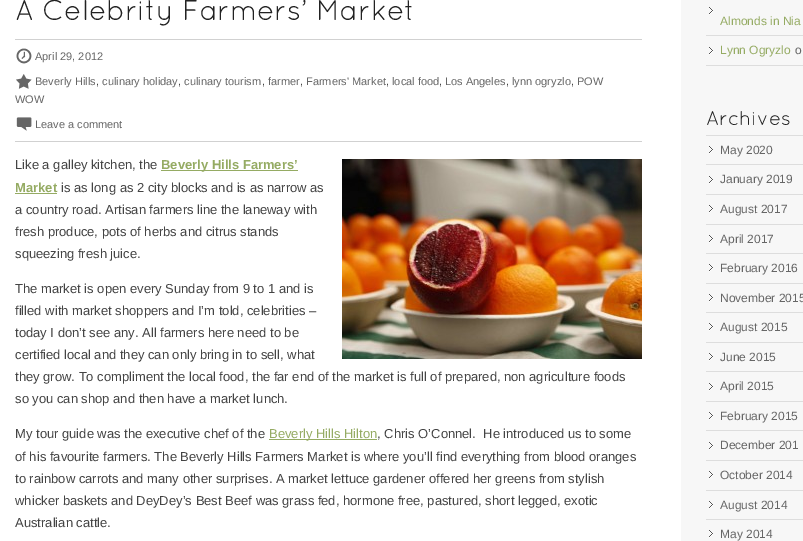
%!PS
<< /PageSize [803 541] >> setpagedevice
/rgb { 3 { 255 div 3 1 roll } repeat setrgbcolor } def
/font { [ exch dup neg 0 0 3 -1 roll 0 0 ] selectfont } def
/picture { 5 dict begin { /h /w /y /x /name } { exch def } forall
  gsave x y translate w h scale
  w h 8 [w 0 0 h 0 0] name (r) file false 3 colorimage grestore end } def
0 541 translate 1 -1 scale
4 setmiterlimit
255 255 255 rgb
0 0 803 541 rectfill
209 209 209 rgb
15 39 627 1 rectfill
15 141 627 1 rectfill
(img/1.rgb) 16 48 16 16 picture
(img/2.rgb) 16 74 16 15 picture
(img/3.rgb) 16 117 16 14 picture
149 171 99 rgb
161 170 137 1 rectfill
(img/4.rgb) 342 159 300 200 picture
[
  [15 193 42 1 149 171 99]
  [269 439 108 1 149 171 99]
  [681 0 122 541 247 247 247]
] { aload pop rgb rectfill } forall
(img/5.rgb) 709 7 4 8 picture
221 221 221 rgb
706 35 97 1 rectfill
(img/5.rgb) 709 47 4 8 picture
[
  [706 65 97 1 221 221 221]
  [706 135 97 1 221 221 221]
  [706 164 97 1 221 221 221]
] { aload pop rgb rectfill } forall
(img/5.rgb) 709 146 4 8 picture
706 194 97 1 rectfill
(img/5.rgb) 709 176 4 8 picture
706 224 97 1 rectfill
(img/5.rgb) 709 205 4 8 picture
706 253 97 1 rectfill
(img/5.rgb) 709 235 4 8 picture
706 283 97 1 rectfill
(img/5.rgb) 709 264 4 8 picture
706 312 97 1 rectfill
(img/5.rgb) 709 294 4 8 picture
706 342 97 1 rectfill
(img/5.rgb) 709 323 4 8 picture
706 371 97 1 rectfill
(img/5.rgb) 709 353 4 8 picture
706 401 97 1 rectfill
(img/5.rgb) 709 383 4 8 picture
706 430 97 1 rectfill
(img/5.rgb) 709 412 4 8 picture
706 460 97 1 rectfill
(img/5.rgb) 709 442 4 8 picture
706 490 97 1 rectfill
(img/5.rgb) 709 471 4 8 picture
706 519 97 1 rectfill
(img/5.rgb) 709 501 4 8 picture
(img/5.rgb) 709 530 4 8 picture
/Quicksand-Regular 28.6 font
34 34 34 rgb
15 20 moveto (A Celebrity Farmers’ Market) show
/LiberationSans-Regular 11 font
102 102 102 rgb
35 60 moveto (April 29, 2012) show
35 85 moveto (Beverly Hills) show
68 68 68 rgb
96 85 moveto (,) show
102 102 102 rgb
102 85 moveto (culinary holiday) show
68 68 68 rgb
178 85 moveto (,) show
102 102 102 rgb
184 85 moveto (culinary tourism) show
68 68 68 rgb
262 85 moveto (,) show
102 102 102 rgb
268 85 moveto (farmer) show
68 68 68 rgb
300 85 moveto (,) show
102 102 102 rgb
306 85 moveto (Farmers' Market) show
68 68 68 rgb
386 85 moveto (,) show
102 102 102 rgb
392 85 moveto (local food) show
68 68 68 rgb
439 85 moveto (,) show
102 102 102 rgb
445 85 moveto (Los Angeles) show
68 68 68 rgb
506 85 moveto (,) show
102 102 102 rgb
512 85 moveto (lynn ogryzlo) show
68 68 68 rgb
571 85 moveto (,) show
102 102 102 rgb
[
  [(POW) 577 85]
  [(WOW) 15 103]
  [(Leave a comment) 35 128]
] { aload pop moveto show } forall
/LiberationSans-Regular 13 font
68 68 68 rgb
15 169 moveto (Like a galley kitchen, the) show
/LiberationSans-Bold 13 font
149 171 99 rgb
161 169 moveto (Beverly Hills Farmers’) show
15 192 moveto (Market) show
/LiberationSans-Regular 13 font
68 68 68 rgb
[
  [(is as long as 2 city blocks and is as narrow as) 61 192]
  [(a country road. Artisan farmers line the laneway with) 15 214]
  [(fresh produce, pots of herbs and citrus stands) 15 236]
  [(squeezing fresh juice.) 15 258]
  [(The market is open every Sunday from 9 to 1 and is) 15 293]
  [(filled with market shoppers and I’m told, celebrities –) 15 315]
  [(today I don’t see any. All farmers here need to be) 15 337]
  [(certified local and they can only bring in to sell, what) 15 359]
  [(they grow. To compliment the local food, the far end of the market is full of prepared, non agriculture foods) 15 381]
  [(so you can shop and then have a market lunch.) 15 403]
  [(My tour guide was the executive chef of the) 15 438]
] { aload pop moveto show } forall
149 171 99 rgb
269 438 moveto (Beverly Hills Hilton) show
68 68 68 rgb
[
  [(, Chris O’Connel.  He introduced us to some) 377 438]
  [(of his favourite farmers. The Beverly Hills Farmers Market is where you’ll find everything from blood oranges) 15 461]
  [(to rainbow carrots and many other surprises. A market lettuce gardener offered her greens from stylish) 15 483]
  [(whicker baskets and DeyDey’s Best Beef was grass fed, hormone free, pastured, short legged, exotic) 15 505]
  [(Australian cattle.) 15 527]
] { aload pop moveto show } forall
/LiberationSans-Regular 12 font
149 171 99 rgb
720 25 moveto (Almonds in Nia) show
720 54 moveto (Lynn Ogryzlo) show
102 102 102 rgb
795 54 moveto (o) show
/Quicksand-Regular 20 font
34 34 34 rgb
706 125 moveto (Archives) show
/LiberationSans-Regular 12 font
102 102 102 rgb
[
  [(May 2020) 720 154]
  [(January 2019) 720 183]
  [(August 2017) 720 213]
  [(April 2017) 720 243]
  [(February 2016) 720 272]
  [(November 2015) 720 302]
  [(August 2015) 720 331]
  [(June 2015) 720 361]
  [(April 2015) 720 390]
  [(February 2015) 720 420]
  [(December 201) 720 449]
  [(October 2014) 720 479]
  [(August 2014) 720 509]
  [(May 2014) 720 538]
] { aload pop moveto show } forall
showpage
